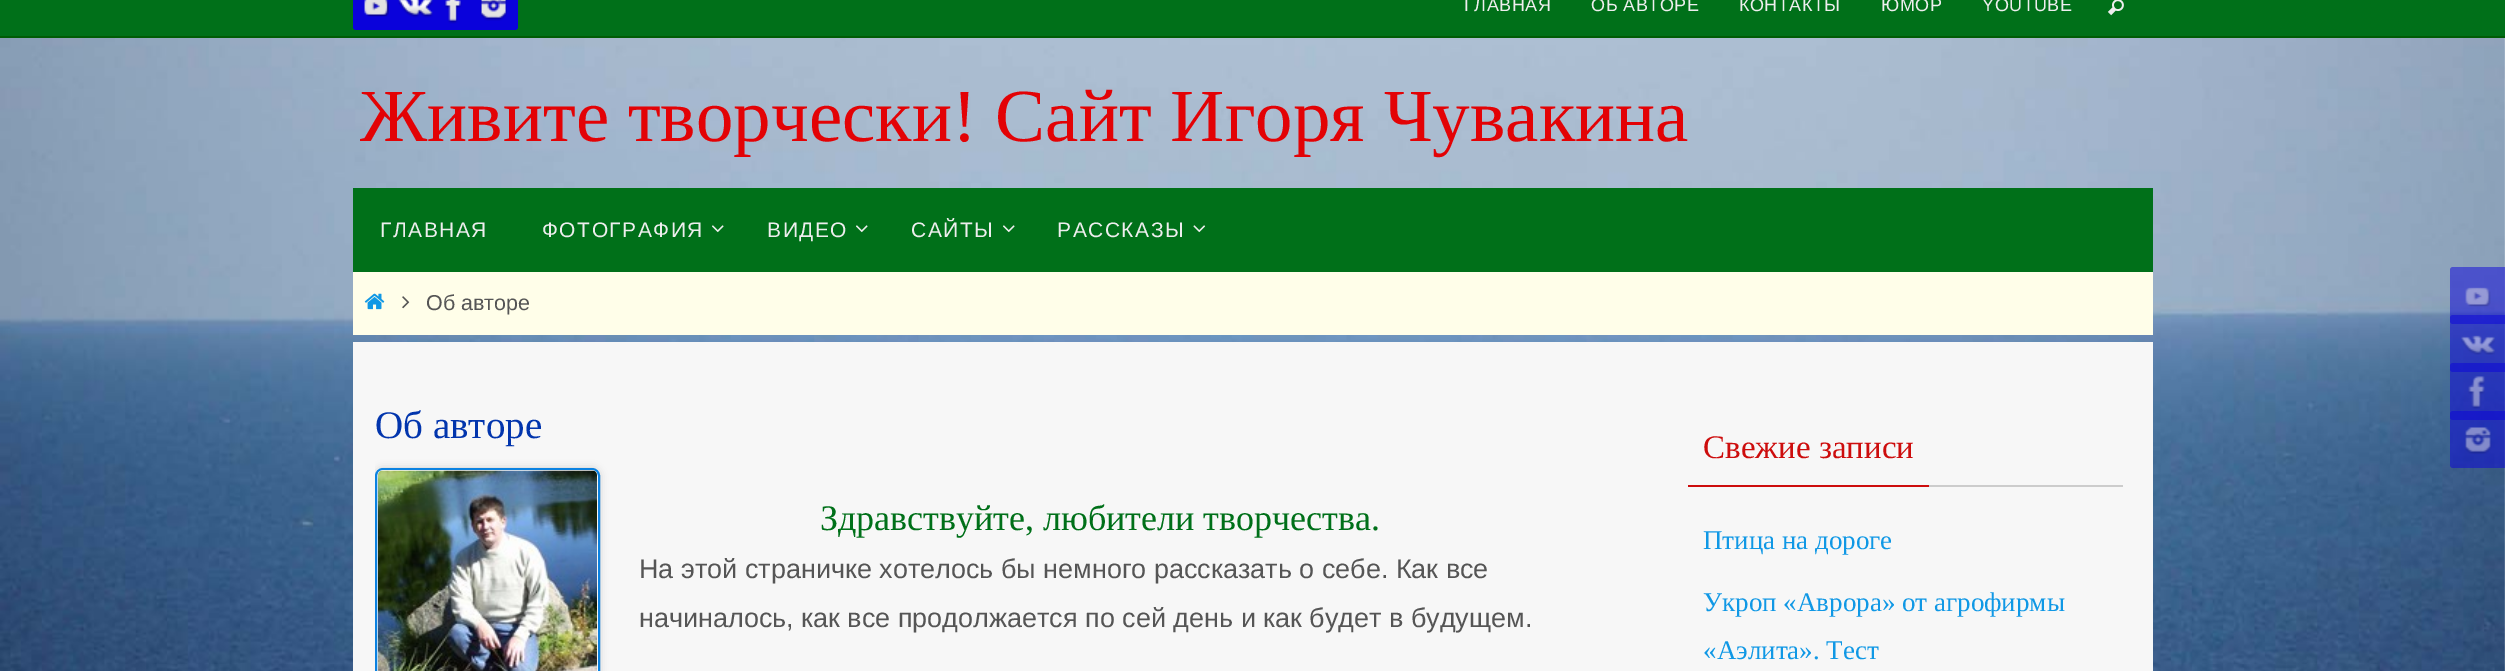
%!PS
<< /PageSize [2505 671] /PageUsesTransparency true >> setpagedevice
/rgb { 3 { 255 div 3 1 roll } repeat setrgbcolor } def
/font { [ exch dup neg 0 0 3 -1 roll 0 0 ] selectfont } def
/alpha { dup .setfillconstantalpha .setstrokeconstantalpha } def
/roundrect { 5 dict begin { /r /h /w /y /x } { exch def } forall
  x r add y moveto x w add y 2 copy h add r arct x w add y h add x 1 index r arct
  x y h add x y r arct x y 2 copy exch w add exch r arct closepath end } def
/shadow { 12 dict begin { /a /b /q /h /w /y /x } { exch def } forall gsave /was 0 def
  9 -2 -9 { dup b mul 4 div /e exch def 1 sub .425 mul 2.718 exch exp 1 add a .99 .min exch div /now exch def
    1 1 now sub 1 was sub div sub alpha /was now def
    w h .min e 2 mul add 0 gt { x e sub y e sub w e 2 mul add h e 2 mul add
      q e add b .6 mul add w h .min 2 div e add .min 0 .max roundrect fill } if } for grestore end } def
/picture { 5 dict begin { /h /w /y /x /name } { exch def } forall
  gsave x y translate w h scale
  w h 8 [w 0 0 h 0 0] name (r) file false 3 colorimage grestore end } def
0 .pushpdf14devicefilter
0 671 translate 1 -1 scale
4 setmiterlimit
255 255 255 rgb
0 0 2505 671 rectfill
(img/1.rgb) 0 38 2505 633 picture
0 112 25 rgb
0 0 2505 36 rectfill
0 92 5 rgb
0 36 2505 2 rectfill
10 2 219 rgb
353 -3 48 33 3 roundrect fill
(img/2.rgb) 364 0 25 17 picture
392 -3 48 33 3 roundrect fill
431 -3 48 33 3 roundrect fill
(img/3.rgb) 398 0 35 18 picture
(img/4.rgb) 444 0 18 24 picture
470 -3 48 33 3 roundrect fill
(img/5.rgb) 480 0 27 21 picture
(img/6.rgb) 2107 0 17 16 picture
0 112 25 rgb
353 188 1800 84 rectfill
(img/7.rgb) 712 225 12 8 picture
(img/7.rgb) 856 225 12 8 picture
(img/7.rgb) 1003 225 12 8 picture
(img/8.rgb) 1193 225 13 8 picture
255 254 233 rgb
353 272 1800 63 rectfill
(img/9.rgb) 364 293 21 17 picture
(img/10.rgb) 402 296 8 13 picture
0.5 alpha
10 2 219 rgb
2450 267 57 57 3 roundrect fill
1 alpha
(img/11.rgb) 2465 287 26 20 picture
0.5 alpha
2450 315 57 57 3 roundrect fill
1 alpha
(img/12.rgb) 2461 335 34 20 picture
0.5 alpha
2450 363 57 57 3 roundrect fill
1 alpha
(img/13.rgb) 2468 376 17 33 picture
0.5 alpha
2450 411 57 57 3 roundrect fill
1 alpha
(img/14.rgb) 2465 427 27 27 picture
247 247 247 rgb
353 342 1800 329 rectfill
gsave
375 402 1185 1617 rectclip
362 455 moveto 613 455 lineto 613 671 lineto 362 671 lineto closepath 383 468 moveto 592 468 lineto 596.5 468 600 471.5 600 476 curveto 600 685 lineto 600 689.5 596.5 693 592 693 curveto 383 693 lineto 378.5 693 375 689.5 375 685 curveto 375 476 lineto 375 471.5 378.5 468 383 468 curveto closepath eoclip newpath
204 204 204 rgb
375 468 225 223 8 4 1 shadow
grestore
11 130 225 rgb
2 setlinewidth
376 469 223 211 7 roundrect stroke
(img/15.rgb) 378 470 219 201 picture
204 204 204 rgb
1929 485 194 2 rectfill
205 13 13 rgb
1688 485 241 2 rectfill
/LiberationSans-Regular 18 font
238 238 238 rgb
1464 11 moveto 0.5 0 (ГЛАВНАЯ) ashow
1591 11 moveto 0.5 0 (ОБ АВТОРЕ) ashow
1739 11 moveto 0.5 0 (КОНТАКТЫ) ashow
1881 11 moveto 0.5 0 (ЮМОР) ashow
1982 11 moveto 0.5 0 (YOUTUBE) ashow
/LiberationSerif-Regular 75 font
227 2 5 rgb
360 141 moveto (Живите творчески! Cайт Игоря Чувакина) show
/LiberationSans-Regular 21 font
238 238 238 rgb
380 237 moveto 1.5 0 (ГЛАВНАЯ) ashow
542 237 moveto 1.5 0 (ФОТОГРАФИЯ) ashow
767 237 moveto 1.5 0 (ВИДЕО) ashow
911 237 moveto 1.5 0 (САЙТЫ) ashow
1057 237 moveto 1.5 0 (РАССКАЗЫ) ashow
/LiberationSans-Regular 21.5 font
85 85 85 rgb
426 310 moveto (Об авторе) show
/LiberationSerif-Regular 39 font
2 53 173 rgb
375 438 moveto (Об авторе) show
/LiberationSerif-Regular 36 font
0 112 25 rgb
820 530 moveto (Здравствуйте, любители творчества.) show
/LiberationSans-Regular 27 font
85 85 85 rgb
639 578 moveto (На этой страничке хотелось бы немного рассказать о себе. Как все) show
639 627 moveto (начиналось, как все продолжается по сей день и как будет в будущем.) show
/LiberationSerif-Regular 33 font
205 13 13 rgb
1703 458 moveto (Свежие записи) show
/LiberationSerif-Regular 27 font
16 152 229 rgb
[
  [(Птица на дороге) 1703 549]
  [(Укроп «Аврора» от агрофирмы) 1703 611]
  [(«Аэлита». Тест) 1703 659]
] { aload pop moveto show } forall
.poppdf14devicefilter showpage
